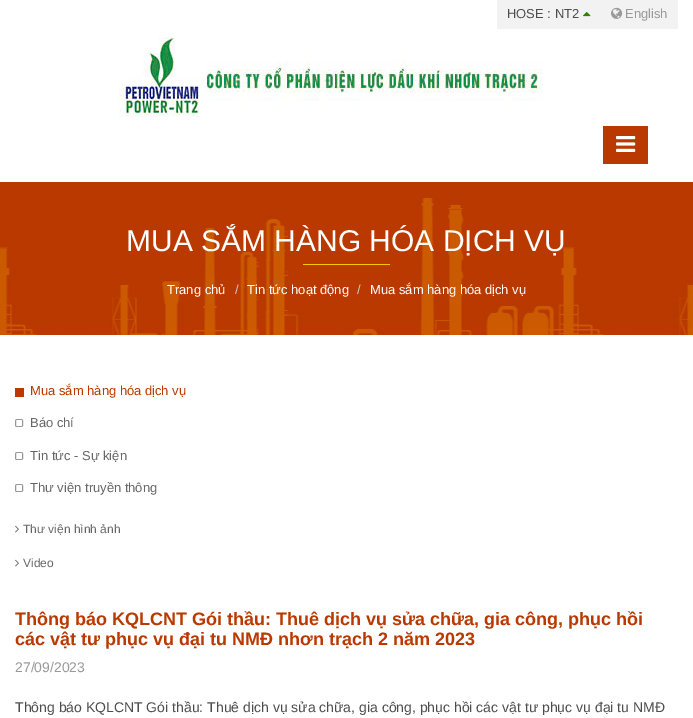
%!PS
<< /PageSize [693 718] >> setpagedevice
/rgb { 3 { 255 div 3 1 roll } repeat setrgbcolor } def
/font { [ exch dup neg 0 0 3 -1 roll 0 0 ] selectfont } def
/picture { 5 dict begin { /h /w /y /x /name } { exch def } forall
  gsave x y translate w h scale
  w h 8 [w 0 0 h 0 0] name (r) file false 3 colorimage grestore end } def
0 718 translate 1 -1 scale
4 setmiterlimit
255 255 255 rgb
0 0 693 718 rectfill
242 242 242 rgb
497 0 181 29 rectfill
(img/1.rgb) 583 12 8 5 picture
(img/2.rgb) 611 7 12 12 picture
(img/3.rgb) 119 37 424 80 picture
185 57 0 rgb
603 126 45 38 rectfill
(img/4.rgb) 616 136 20 16 picture
(img/5.rgb) 0 182 693 153 picture
255 198 0 rgb
303 264 87 1 rectfill
185 57 0 rgb
15 388 9 9 rectfill
(img/6.rgb) 15 419 9 8 picture
(img/6.rgb) 15 452 9 8 picture
(img/6.rgb) 15 484 9 8 picture
(img/7.rgb) 15 525 4 8 picture
(img/7.rgb) 15 559 4 8 picture
/LiberationSans-Regular 13 font
77 77 77 rgb
507 18 moveto (HOSE : NT2) show
153 153 153 rgb
625 18 moveto (English) show
/LiberationSans-Regular 30 font
255 255 255 rgb
126 251 moveto (MUA SẮM HÀNG HÓA DỊCH VỤ) show
/LiberationSans-Regular 13 font
167 294 moveto (Trang chủ) show
204 204 204 rgb
235 294 moveto (/) show
255 255 255 rgb
247 294 moveto (Tin tức hoạt động) show
204 204 204 rgb
357 294 moveto (/) show
255 255 255 rgb
370 294 moveto (Mua sắm hàng hóa dịch vụ) show
185 57 0 rgb
30 395 moveto (Mua sắm hàng hóa dịch vụ) show
102 102 102 rgb
[
  [(Báo chí) 30 427]
  [(Tin tức - Sự kiện) 30 460]
  [(Thư viện truyền thông) 30 492]
] { aload pop moveto show } forall
/LiberationSans-Regular 12 font
23 533 moveto (Thư viện hình ảnh) show
23 567 moveto (Video) show
/LiberationSans-Bold 18 font
185 57 0 rgb
15 625 moveto (Thông báo KQLCNT Gói thầu: Thuê dịch vụ sửa chữa, gia công, phục hồi) show
15 645 moveto (các vật tư phục vụ đại tu NMĐ nhơn trạch 2 năm 2023) show
/LiberationSans-Regular 14 font
153 153 153 rgb
15 672 moveto (27/09/2023) show
77 77 77 rgb
15 712 moveto (Thông báo KQLCNT Gói thầu: Thuê dịch vụ sửa chữa, gia công, phục hồi các vật tư phục vụ đại tu NMĐ) show
showpage
